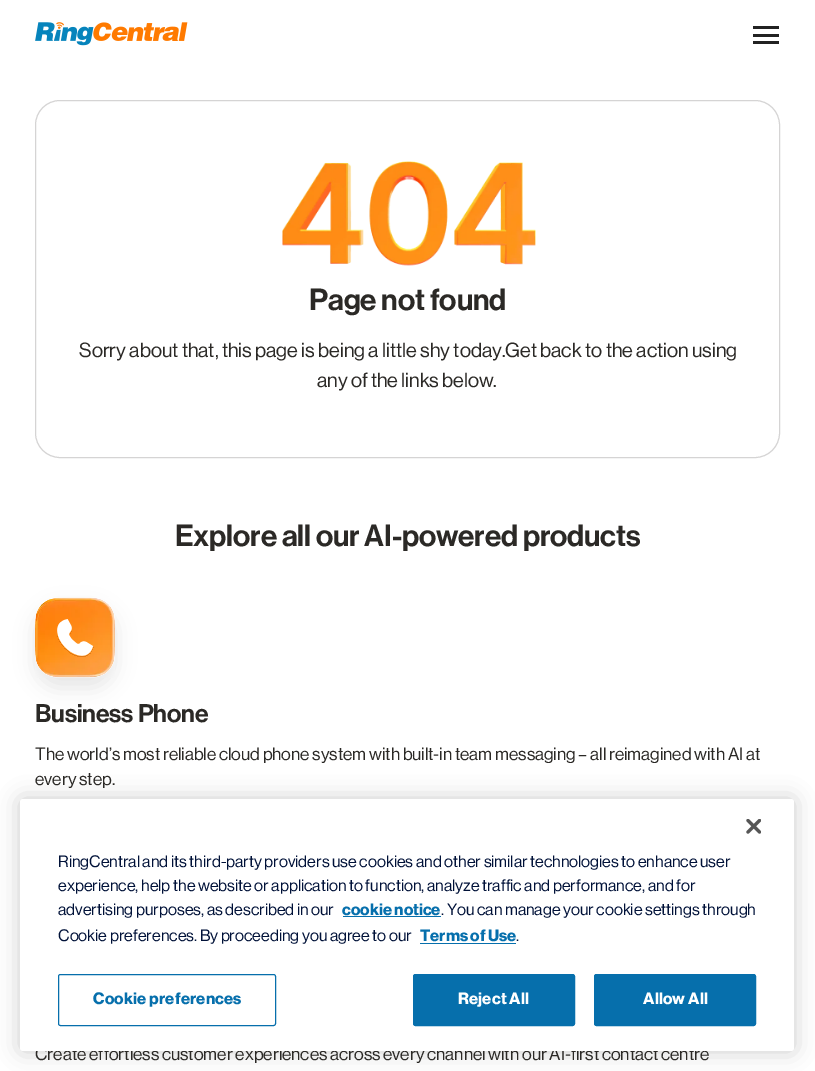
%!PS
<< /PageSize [815 1071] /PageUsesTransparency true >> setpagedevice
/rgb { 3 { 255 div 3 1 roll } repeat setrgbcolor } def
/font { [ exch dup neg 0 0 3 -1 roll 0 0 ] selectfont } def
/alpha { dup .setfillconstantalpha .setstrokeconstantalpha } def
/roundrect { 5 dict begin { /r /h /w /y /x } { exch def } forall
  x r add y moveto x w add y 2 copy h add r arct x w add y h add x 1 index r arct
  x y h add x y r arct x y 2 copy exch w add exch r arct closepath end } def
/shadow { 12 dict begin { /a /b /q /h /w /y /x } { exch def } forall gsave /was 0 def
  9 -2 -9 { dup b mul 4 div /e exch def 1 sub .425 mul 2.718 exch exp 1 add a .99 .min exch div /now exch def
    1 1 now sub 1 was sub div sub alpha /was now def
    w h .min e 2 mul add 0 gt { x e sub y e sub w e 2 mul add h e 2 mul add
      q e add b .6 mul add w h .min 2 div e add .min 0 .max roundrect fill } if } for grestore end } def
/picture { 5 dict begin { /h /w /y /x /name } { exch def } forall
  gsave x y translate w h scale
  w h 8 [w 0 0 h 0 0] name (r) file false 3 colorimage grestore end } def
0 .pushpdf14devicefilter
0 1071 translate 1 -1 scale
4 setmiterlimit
255 255 255 rgb
0 0 815 1071 rectfill
(img/1.rgb) 35 22 153 24 picture
[
  [753 26 26 3 34 34 34]
  [753 34 26 3 34 34 34]
  [753 41 26 3 34 34 34]
] { aload pop rgb rectfill } forall
213 212 212 rgb
35.5 100.5 744 357 24.5 roundrect stroke
(img/2.rgb) 282 161 254 105 picture
0 0 0 rgb
35 608 80 80 23 10 0.1 shadow
(img/3.rgb) 35 597 80 81 picture
(img/4.rgb) 57 619 37 38 picture
20 799 774 252 3 11 0.2 shadow
/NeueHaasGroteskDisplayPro-SemiBold 30 font
43 41 38 rgb
309 310 moveto -0.1 0 (Page not found) ashow
/NeueHaasGroteskDisplayPro-Regular 20 font
79 357 moveto 0.25 0 32 (Sorry about that, this page is being a little shy today.Get back to the action using) widthshow
317 387 moveto (any of the links below.) show
/NeueHaasGroteskDisplayPro-SemiBold 30 font
175 546 moveto -0.1 0 (Explore all our AI-powered products) ashow
/NeueHaasGroteskDisplayPro-SemiBold 25 font
35 722 moveto -0.1 0 (Business Phone) ashow
/NeueHaasGroteskDisplayPro-Regular 17.5 font
[
  [(The world’s most reliable cloud phone system with built-in team messaging – all reimagined with AI at) 35 760]
  [(every step.) 35 785]
  [(Create effortless customer experiences across every channel with our AI-first contact centre) 35 1060]
] { aload pop moveto show } forall
255 255 255 rgb
20 799 774 252 3 roundrect fill
(img/5.rgb) 746 819 15 15 picture
/NeueHaasGroteskDisplayPro-Regular 16.25 font
0 17 56 rgb
[
  [(RingCentral and its third-party providers use cookies and other similar technologies to enhance user) 58 867]
  [(experience, help the website or application to function, analyze traffic and performance, and for) 58 891]
  [(advertising purposes, as described in our) 58 915]
] { aload pop moveto show } forall
/NeueHaasGroteskDisplayPro-Bold 16.25 font
6 111 172 rgb
342 915 moveto (cookie notice) show
343 916 98 1 rectfill
/NeueHaasGroteskDisplayPro-Regular 16.25 font
0 17 56 rgb
441 915 moveto (. You can manage your cookie settings through) show
58 941 moveto (Cookie preferences. By proceeding you agree to our) show
/NeueHaasGroteskDisplayPro-Bold 16.25 font
6 111 172 rgb
420 941 moveto (Terms of Use) show
420 943 96 1 rectfill
/NeueHaasGroteskDisplayPro-Regular 16.25 font
0 17 56 rgb
516 941 moveto (.) show
6 111 172 rgb
58.5 974.5 217 51 2 roundrect stroke
/NeueHaasGroteskDisplayPro-Bold 16.25 font
93 1004 moveto 0.2 0 (Cookie preferences) ashow
413.5 974.5 161 51 2 roundrect gsave fill grestore
stroke
255 255 255 rgb
458 1004 moveto 0.2 0 (Reject All) ashow
6 111 172 rgb
594.5 974.5 161 51 2 roundrect gsave fill grestore
stroke
255 255 255 rgb
643 1004 moveto 0.2 0 (Allow All) ashow
.poppdf14devicefilter showpage
